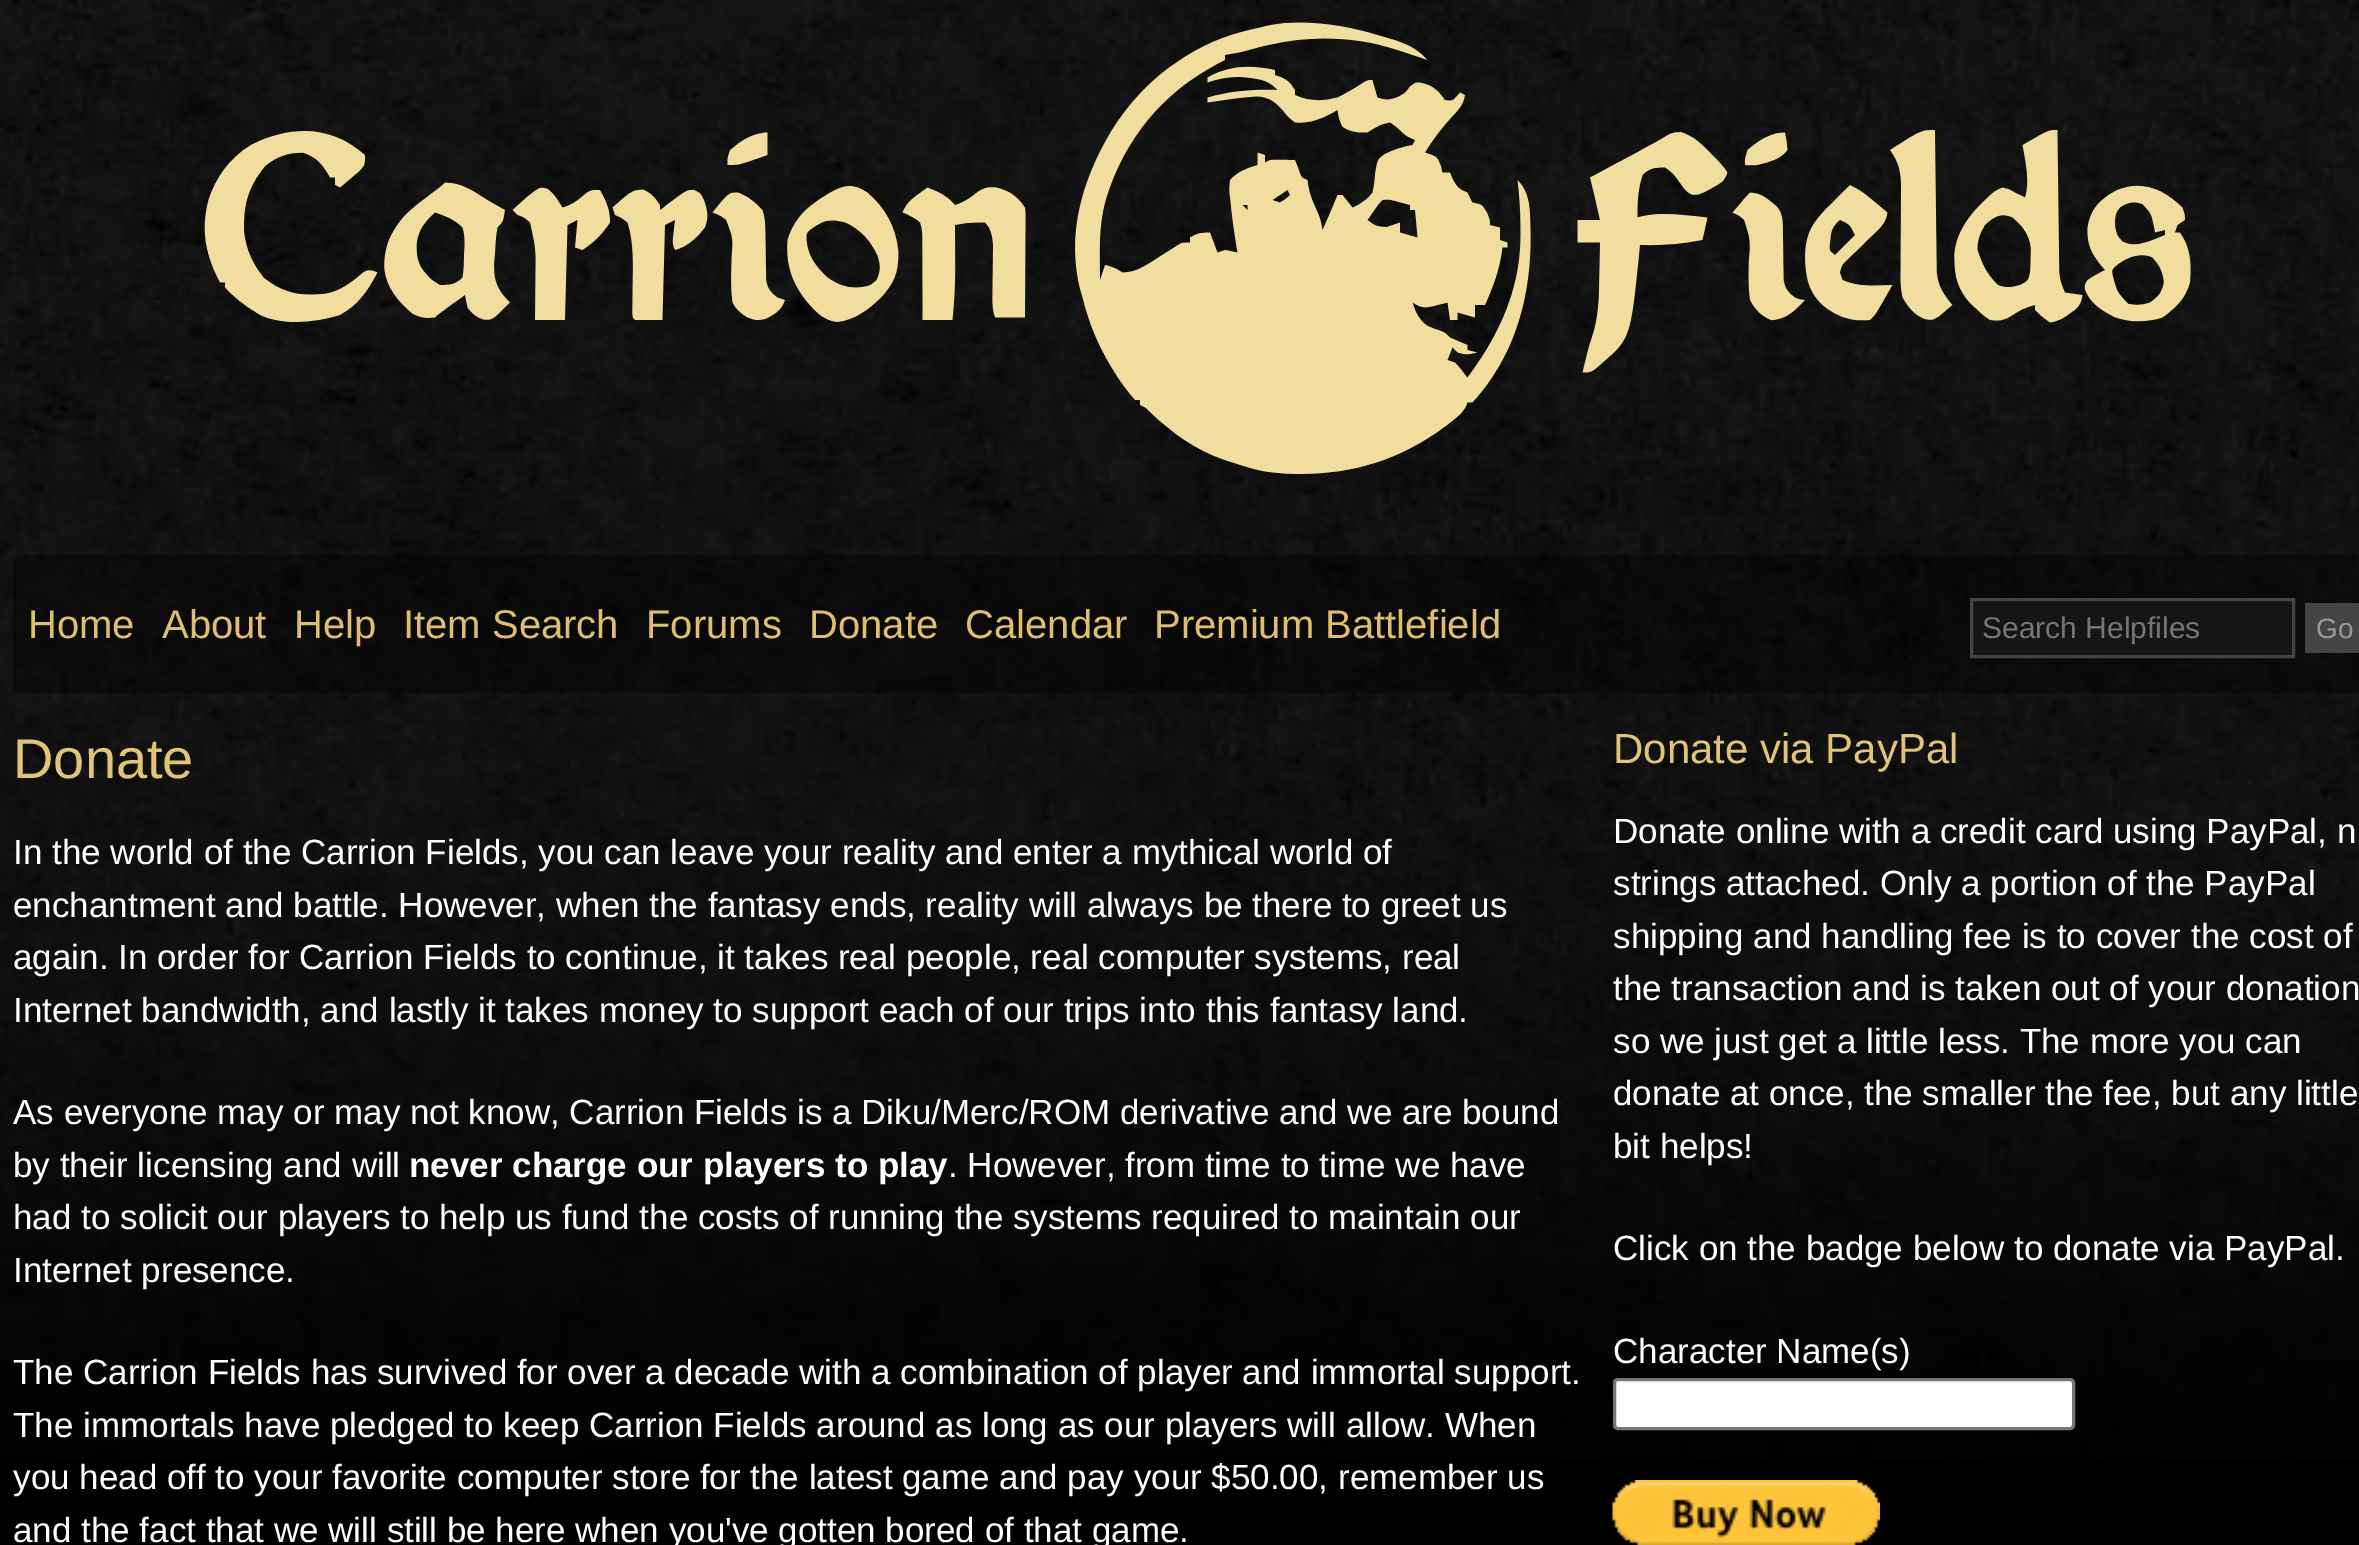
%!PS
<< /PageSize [2359 1545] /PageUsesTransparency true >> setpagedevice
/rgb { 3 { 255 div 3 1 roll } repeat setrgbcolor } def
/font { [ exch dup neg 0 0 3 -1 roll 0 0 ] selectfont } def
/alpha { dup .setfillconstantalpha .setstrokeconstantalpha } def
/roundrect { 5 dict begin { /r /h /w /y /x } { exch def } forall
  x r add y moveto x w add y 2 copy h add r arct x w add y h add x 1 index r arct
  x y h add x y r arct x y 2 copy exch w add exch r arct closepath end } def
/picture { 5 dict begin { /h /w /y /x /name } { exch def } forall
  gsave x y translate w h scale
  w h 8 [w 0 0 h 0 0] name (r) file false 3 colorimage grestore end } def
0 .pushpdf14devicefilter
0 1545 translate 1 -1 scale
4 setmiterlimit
0 0 0 rgb
0 0 2359 1545 rectfill
(img/1.rgb) 0 0 2359 1459 picture
(img/2.rgb) 204 22 1987 452 picture
0.4 alpha
13 555 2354 138 8 roundrect fill
1 alpha
21 21 21 rgb
1971.5 599.5 moveto 2293.5 599.5 lineto 2293.5 656.5 lineto 1971.5 656.5 lineto closepath gsave fill grestore
68 68 68 rgb
3 setlinewidth
stroke
2305 603 54 50 rectfill
255 255 255 rgb
1614.5 1379.5 459 49 3.5 roundrect gsave fill grestore
118 118 118 rgb
stroke
(img/3.rgb) 1612 1480 268 65 picture
/LiberationSans-Regular 40 font
223 190 111 rgb
[
  [(Home) 28 638]
  [(About) 162 638]
  [(Help) 294 638]
  [(Item Search) 403 638]
  [(Forums) 646 638]
  [(Donate) 809 638]
  [(Calendar) 965 638]
  [(Premium Battlefield) 1154 638]
] { aload pop moveto show } forall
/LiberationSans-Regular 30 font
117 117 117 rgb
1982 638 moveto (Search Helpfiles) show
/LiberationSans-Regular 28 font
153 153 153 rgb
2316 638 moveto (Go) show
/LiberationSans-Regular 56 font
225 196 119 rgb
13 778 moveto (Donate) show
/LiberationSans-Regular 35 font
255 255 255 rgb
[
  [(In the world of the Carrion Fields, you can leave your reality and enter a mythical world of) 13 864]
  [(enchantment and battle. However, when the fantasy ends, reality will always be there to greet us) 13 917]
  [(again. In order for Carrion Fields to continue, it takes real people, real computer systems, real) 13 969]
  [(Internet bandwidth, and lastly it takes money to support each of our trips into this fantasy land.) 13 1022]
  [(As everyone may or may not know, Carrion Fields is a Diku/Merc/ROM derivative and we are bound) 13 1124]
  [(by their licensing and will) 13 1177]
] { aload pop moveto show } forall
/LiberationSans-Bold 35 font
409 1177 moveto (never charge our players to play) show
/LiberationSans-Regular 35 font
[
  [(. However, from time to time we have) 948 1177]
  [(had to solicit our players to help us fund the costs of running the systems required to maintain our) 13 1229]
  [(Internet presence.) 13 1282]
  [(The Carrion Fields has survived for over a decade with a combination of player and immortal support.) 13 1384]
  [(The immortals have pledged to keep Carrion Fields around as long as our players will allow. When) 13 1437]
  [(you head off to your favorite computer store for the latest game and pay your $50.00, remember us) 13 1489]
  [(and the fact that we will still be here when you've gotten bored of that game.) 13 1542]
] { aload pop moveto show } forall
/LiberationSans-Regular 42 font
225 196 119 rgb
1613 763 moveto (Donate via PayPal) show
/LiberationSans-Regular 35 font
255 255 255 rgb
[
  [(Donate online with a credit card using PayPal, n) 1613 843]
  [(strings attached. Only a portion of the PayPal) 1613 895]
  [(shipping and handling fee is to cover the cost of) 1613 948]
  [(the transaction and is taken out of your donation) 1613 1000]
  [(so we just get a little less. The more you can) 1613 1053]
  [(donate at once, the smaller the fee, but any little) 1613 1105]
  [(bit helps!) 1613 1158]
  [(Click on the badge below to donate via PayPal.) 1613 1260]
  [(Character Name\(s\)) 1613 1363]
] { aload pop moveto show } forall
.poppdf14devicefilter showpage
